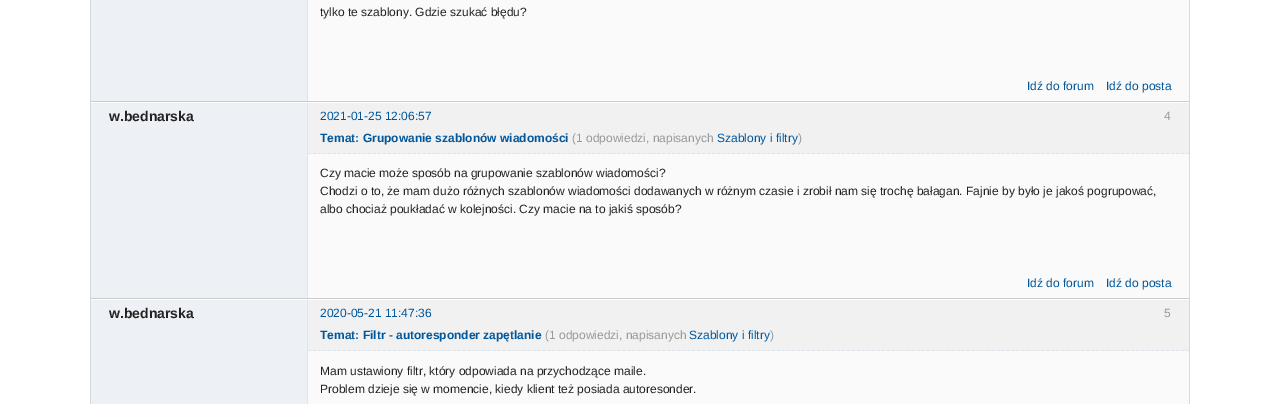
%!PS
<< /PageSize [1280 404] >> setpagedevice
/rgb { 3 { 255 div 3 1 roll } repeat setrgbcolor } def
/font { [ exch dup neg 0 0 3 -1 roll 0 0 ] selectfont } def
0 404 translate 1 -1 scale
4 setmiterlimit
255 255 255 rgb
0 0 1280 404 rectfill
[
  [1189 0 1 404 211 218 225]
  [90 0 1 404 211 218 225]
  [91 0 216 101 237 241 245]
  [91 101 1098 1 204 204 204]
  [308 0 881 101 250 250 250]
  [307 0 1 101 221 228 235]
  [91 103 216 195 237 241 245]
  [91 298 1098 1 204 204 204]
  [307 103 1 195 221 228 235]
  [308 103 881 51 241 241 241]
] { aload pop rgb rectfill } forall
221 228 235 rgb
[3 1.99] 0 setdash
308 153.5 moveto 1189 153.5 lineto stroke
[
  [308 154 881 144 250 250 250]
  [91 300 216 104 237 241 245]
  [307 300 1 104 221 228 235]
  [308 300 881 51 241 241 241]
] { aload pop rgb rectfill } forall
221 228 235 rgb
308 350.5 moveto 1189 350.5 lineto stroke
250 250 250 rgb
308 351 881 53 rectfill
/LiberationSans-Regular 12 font
34 34 34 rgb
320 16 moveto (tylko te szablony. Gdzie szukać błędu?) show
0 87 156 rgb
1027 90 moveto (Idź do forum) show
1106 90 moveto (Idź do posta) show
/LiberationSans-Bold 14 font
34 34 34 rgb
109 121 moveto (w.bednarska) show
/LiberationSans-Regular 12 font
0 87 156 rgb
320 120 moveto (2021-01-25 12:06:57) show
153 153 153 rgb
1164 120 moveto (4) show
/LiberationSans-Bold 12 font
0 87 156 rgb
320 142 moveto (Temat: Grupowanie szablonów wiadomości) show
/LiberationSans-Regular 12 font
153 153 153 rgb
572 142 moveto (\(1 odpowiedzi, napisanych) show
0 87 156 rgb
717 142 moveto (Szablony i filtry) show
153 153 153 rgb
798 142 moveto (\)) show
34 34 34 rgb
[
  [(Czy macie może sposób na grupowanie szablonów wiadomości?) 320 177]
  [(Chodzi o to, że mam dużo różnych szablonów wiadomości dodawanych w różnym czasie i zrobił nam się trochę bałagan. Fajnie by było je jakoś pogrupować,) 320 195]
  [(albo chociaż poukładać w kolejności. Czy macie na to jakiś sposób?) 320 213]
] { aload pop moveto show } forall
0 87 156 rgb
1027 287 moveto (Idź do forum) show
1106 287 moveto (Idź do posta) show
/LiberationSans-Bold 14 font
34 34 34 rgb
109 318 moveto (w.bednarska) show
/LiberationSans-Regular 12 font
0 87 156 rgb
320 317 moveto (2020-05-21 11:47:36) show
153 153 153 rgb
1164 317 moveto (5) show
/LiberationSans-Bold 12 font
0 87 156 rgb
320 339 moveto (Temat: Filtr - autoresponder zapętlanie) show
/LiberationSans-Regular 12 font
153 153 153 rgb
545 339 moveto (\(1 odpowiedzi, napisanych) show
0 87 156 rgb
689 339 moveto (Szablony i filtry) show
153 153 153 rgb
770 339 moveto (\)) show
34 34 34 rgb
320 375 moveto (Mam ustawiony filtr, który odpowiada na przychodzące maile.) show
320 393 moveto (Problem dzieje się w momencie, kiedy klient też posiada autoresonder.) show
showpage
